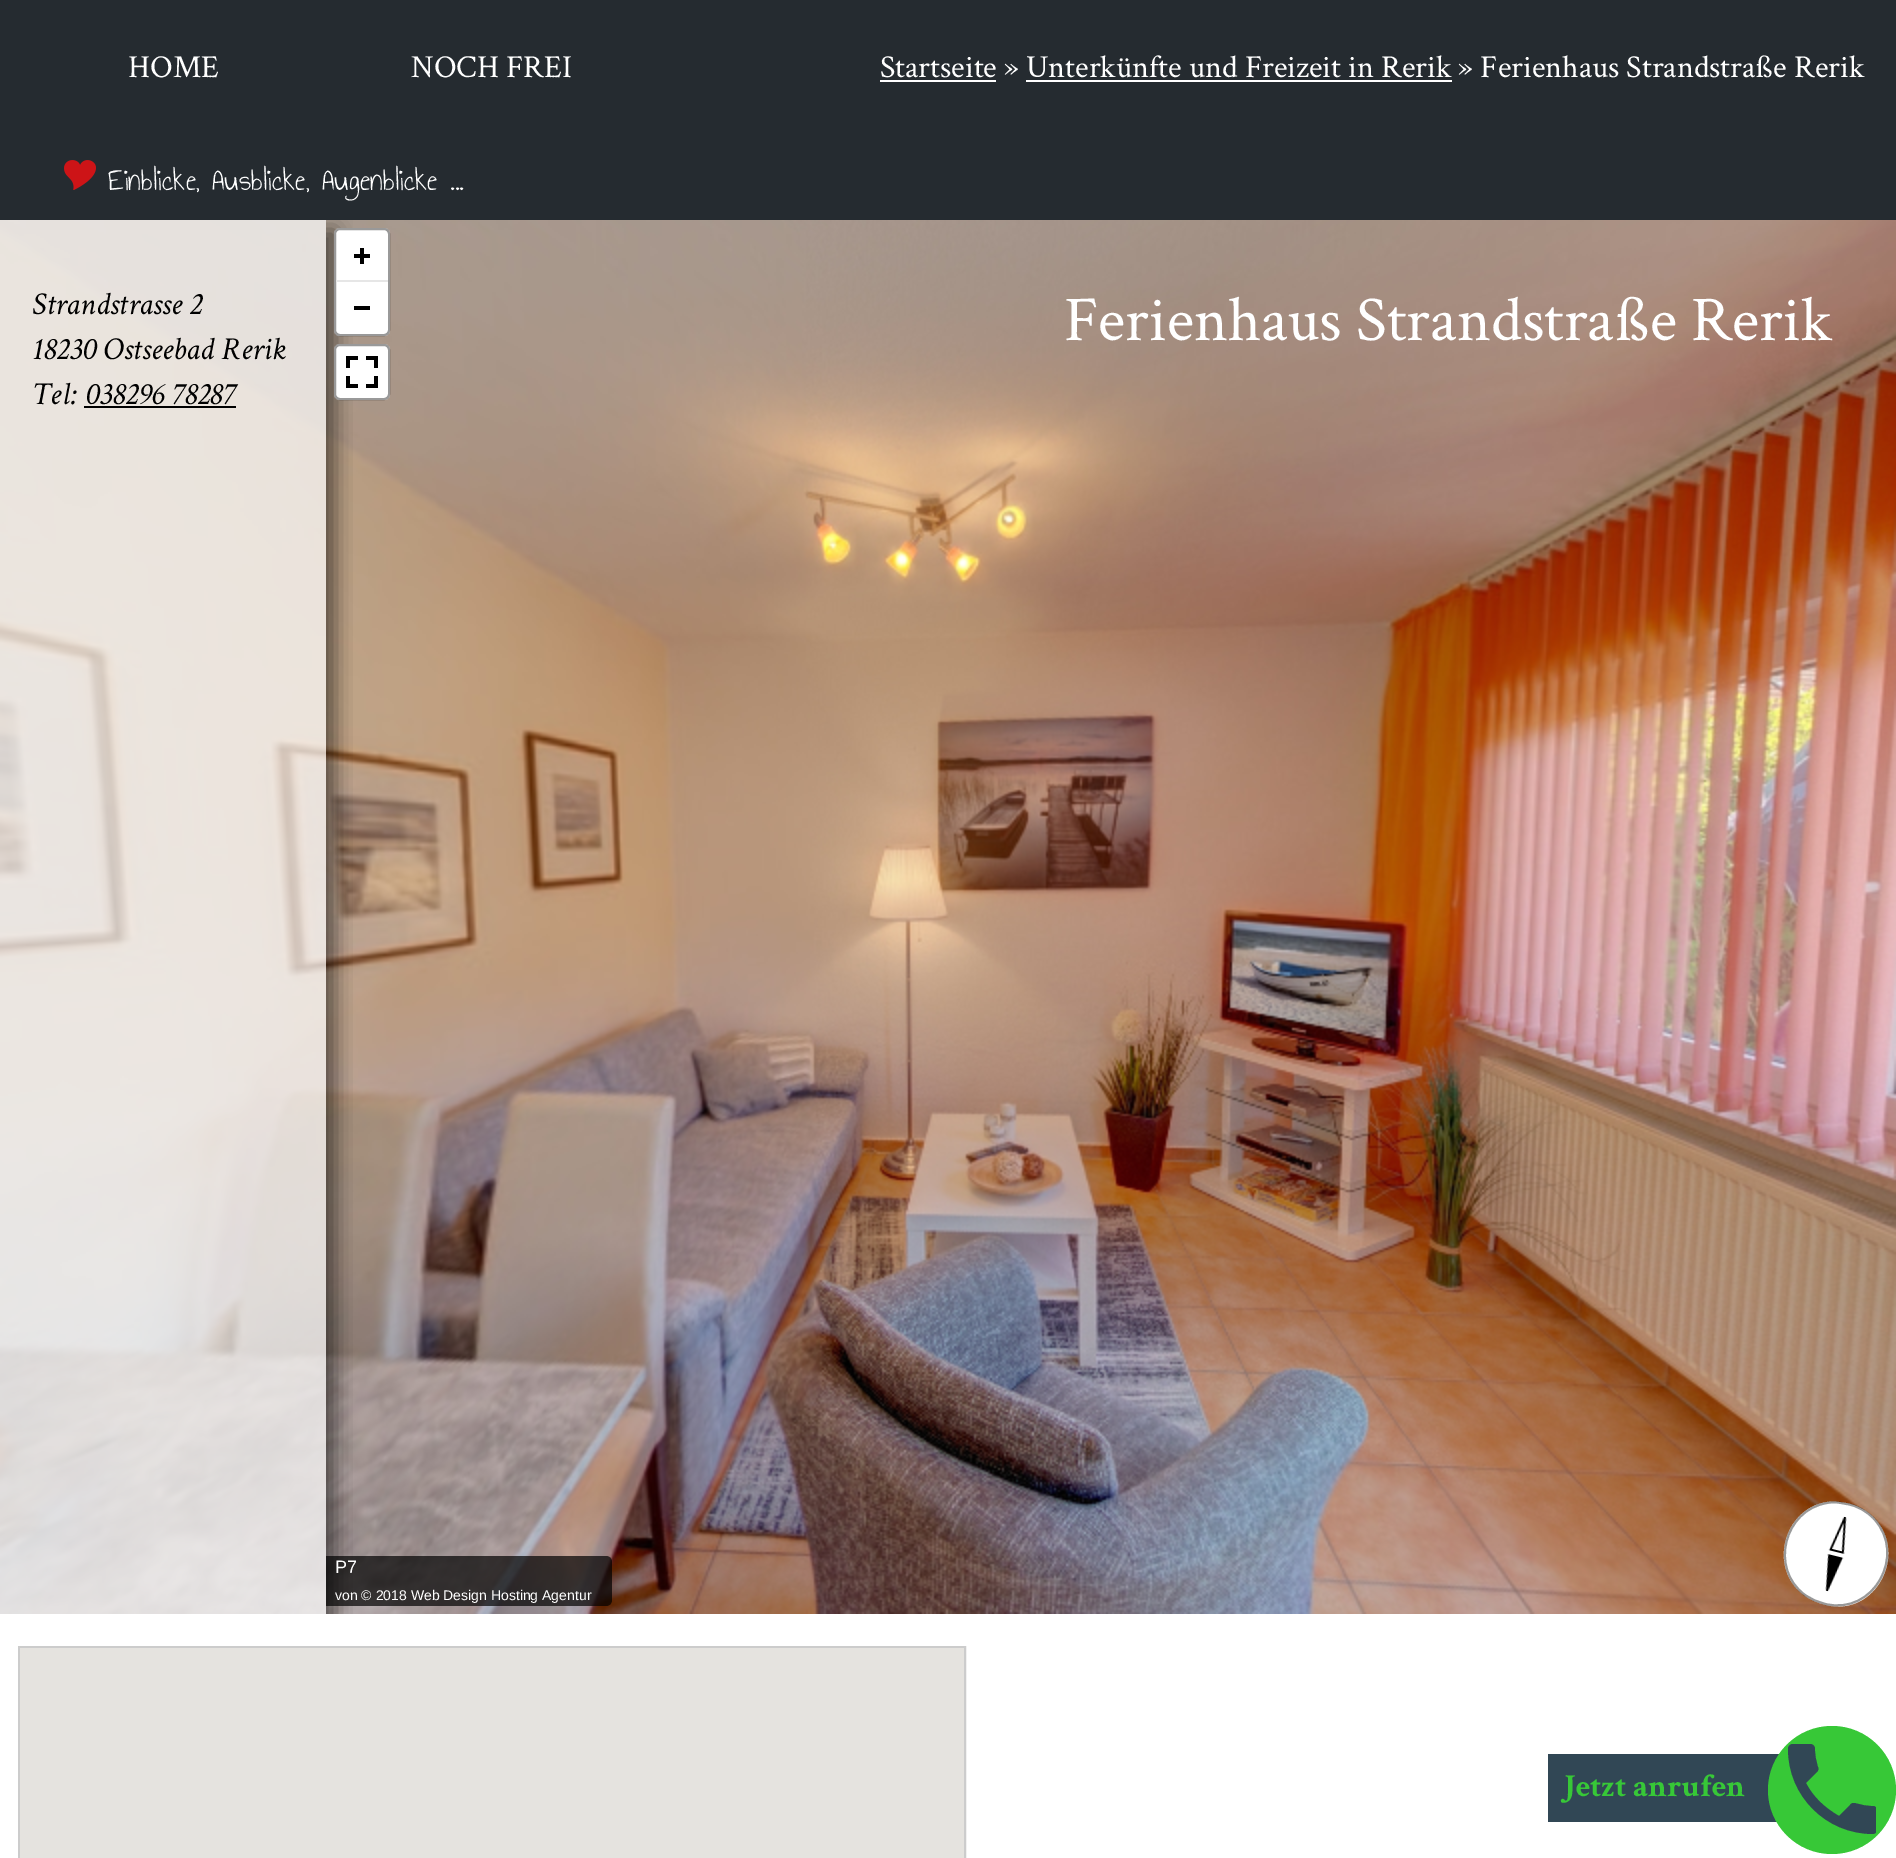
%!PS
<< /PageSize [1896 1858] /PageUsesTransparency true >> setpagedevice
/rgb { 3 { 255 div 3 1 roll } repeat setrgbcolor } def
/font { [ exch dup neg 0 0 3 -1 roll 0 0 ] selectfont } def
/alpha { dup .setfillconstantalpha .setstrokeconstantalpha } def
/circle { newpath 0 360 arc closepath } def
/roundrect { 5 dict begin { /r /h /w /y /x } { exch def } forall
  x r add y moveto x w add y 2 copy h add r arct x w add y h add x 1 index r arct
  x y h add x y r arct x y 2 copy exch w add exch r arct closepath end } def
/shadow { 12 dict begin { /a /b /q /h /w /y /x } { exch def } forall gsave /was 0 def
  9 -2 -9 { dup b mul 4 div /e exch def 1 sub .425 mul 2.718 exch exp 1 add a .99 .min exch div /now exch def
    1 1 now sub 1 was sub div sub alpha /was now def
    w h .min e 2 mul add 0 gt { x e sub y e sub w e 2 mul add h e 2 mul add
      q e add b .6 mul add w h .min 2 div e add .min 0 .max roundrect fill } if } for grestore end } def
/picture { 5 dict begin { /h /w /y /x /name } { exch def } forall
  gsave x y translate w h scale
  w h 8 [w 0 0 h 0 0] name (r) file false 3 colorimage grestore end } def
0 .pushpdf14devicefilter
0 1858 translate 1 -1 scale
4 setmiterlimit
255 255 255 rgb
0 0 1896 1858 rectfill
[
  [0 0 1896 220 37 43 48]
  [880 80 116 2 255 255 255]
  [1026 80 426 2 255 255 255]
] { aload pop rgb rectfill } forall
(img/1.rgb) 64 160 32 30 picture
(img/2.rgb) 0 220 1896 1394 picture
204 204 204 rgb
2 setlinewidth
19 1647 946 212 rectstroke
gsave
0 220 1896 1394 rectclip
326 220 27 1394 rectclip
0 0 0 rgb
30 230 306 1438 0 10 0.5 shadow
grestore
0.7 alpha
255 255 255 rgb
0 220 326 1394 rectfill
1 alpha
0 0 0 rgb
84 406 152 2 rectfill
255 255 255 rgb
334 228 56 108 6 roundrect fill
0.4 alpha
0 0 0 rgb
335 229 54 106 5 roundrect stroke
1 alpha
(img/3.rgb) 354 248 16 16 picture
354 306 16 4 rectfill
230 230 230 rgb
336 280 52 2 rectfill
255 255 255 rgb
334 344 56 56 6 roundrect fill
(img/4.rgb) 346 356 32 32 picture
0.4 alpha
0 0 0 rgb
335 345 54 54 5 roundrect stroke
0.7 alpha
326 1556 moveto 606 1556 lineto 609.5 1556 612 1558.5 612 1562 curveto 612 1600 lineto 612 1603.5 609.5 1606 606 1606 curveto 326 1606 lineto closepath fill
1 alpha
255 255 255 rgb
1826 1605 moveto 1818 1603 1810 1600 1804 1595 curveto 1768 1569 1783 1509 1827 1502 curveto 1835 1501 1838 1502 1846 1503 curveto 1857 1505 1868 1511 1875 1519 curveto 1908 1555 1875 1617 1826 1605 curveto closepath fill
(img/5.rgb) 1825 1516 22 76 picture
0.4 alpha
0 0 0 rgb
1825.5 1604 moveto 1818 1602 1811 1599.5 1804.5 1594.5 curveto 1769.5 1568.5 1784 1510 1827 1503 curveto 1835 1501.5 1838 1502.5 1846.5 1504 curveto 1857 1505.5 1867.5 1511.5 1874.5 1519.5 curveto 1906.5 1555 1874 1615.5 1825.5 1604 curveto closepath stroke
1 alpha
229 227 223 rgb
20 1648 944 210 rectfill
49 71 85 rgb
1548 1754 231 68 rectfill
55 200 55 rgb
1832 1790 64 circle fill
gsave
1788 1744 88 90 rectclip
49 71 85 rgb
1806 1783 moveto 1813 1797 1825 1808 1839 1816 curveto 1850 1805 lineto 1851 1803 1853 1803 1855 1803 curveto 1861 1805 1867 1806 1873 1806 curveto 1875 1806 1878 1808 1878 1811 curveto 1878 1829 lineto 1878 1831 1875 1834 1873 1834 curveto 1826 1834 1788 1796 1788 1749 curveto 1788 1746 1790 1744 1793 1744 curveto 1810 1744 lineto 1813 1744 1815 1746 1815 1749 curveto 1815 1755 1816 1761 1818 1767 curveto 1819 1769 1818 1771 1817 1772 curveto closepath fill
grestore
/CrimsonText-Regular 32 font
255 255 255 rgb
[
  [(HOME) 128 77]
  [(NOCH FREI) 411 77]
  [(Startseite » Unterkünfte und Freizeit in Rerik » Ferienhaus Strandstraße Rerik) 880 77]
] { aload pop moveto show } forall
/AnnieUseYourTelescope-Regular 32 font
108 190 moveto (Einblicke, Ausblicke, Augenblicke ...) show
/CrimsonText-Italic 32 font
0 0 0 rgb
[
  [(Strandstrasse 2) 32 314]
  [(18230 Ostseebad Rerik) 32 359]
  [(Tel: 038296 78287) 32 404]
] { aload pop moveto show } forall
/CrimsonText-Regular 64 font
255 255 255 rgb
1064 340 moveto (Ferienhaus Strandstraße Rerik) show
/LiberationSans-Regular 18 font
335 1573 moveto (P7) show
/LiberationSans-Regular 14 font
335 1600 moveto (von © 2018 Web Design Hosting Agentur) show
/CrimsonText-Bold 32 font
55 200 55 rgb
1564 1796 moveto (Jetzt anrufen) show
.poppdf14devicefilter showpage
